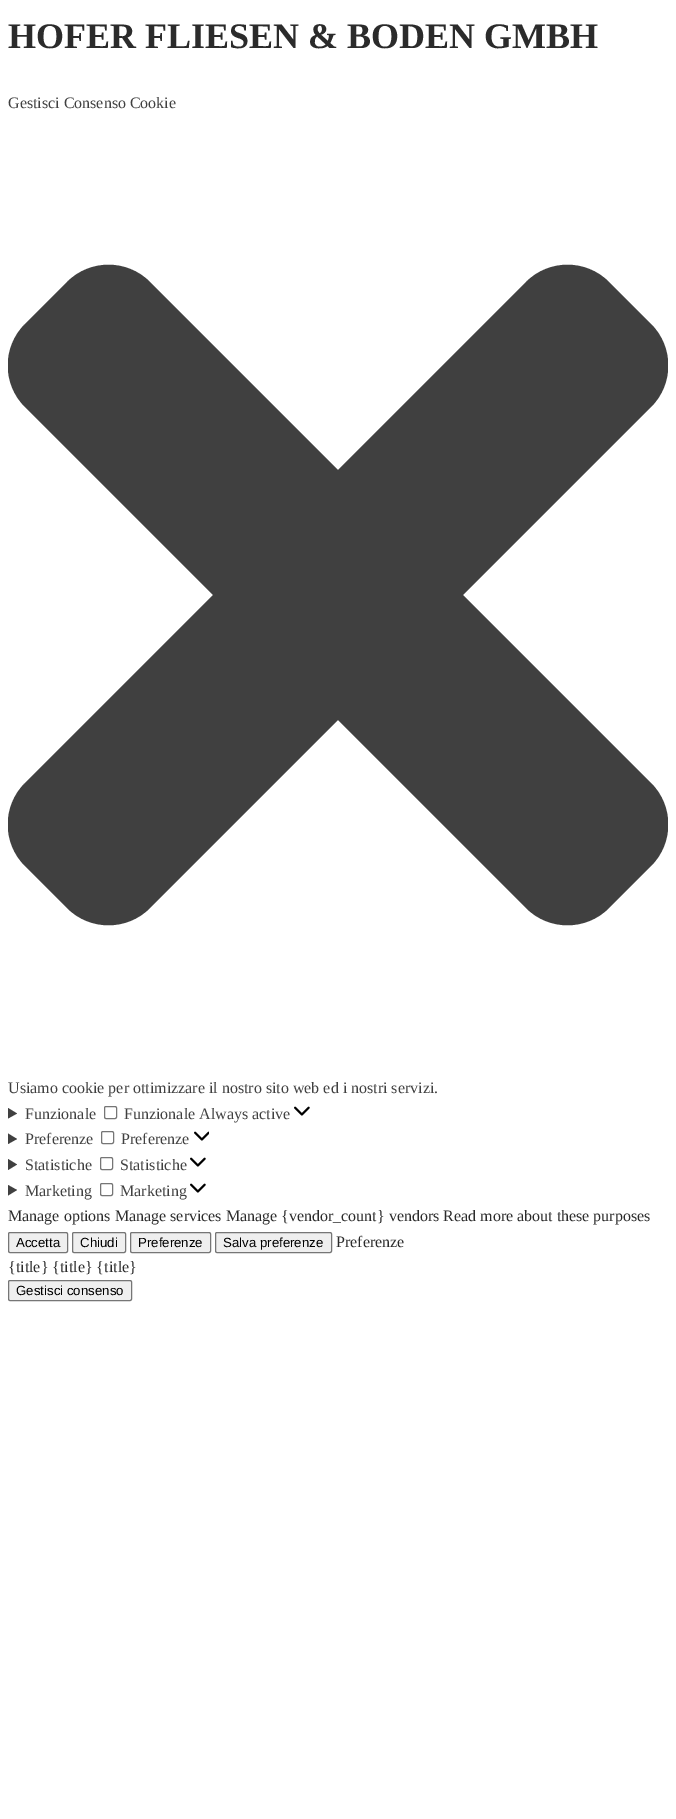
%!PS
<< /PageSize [676 1819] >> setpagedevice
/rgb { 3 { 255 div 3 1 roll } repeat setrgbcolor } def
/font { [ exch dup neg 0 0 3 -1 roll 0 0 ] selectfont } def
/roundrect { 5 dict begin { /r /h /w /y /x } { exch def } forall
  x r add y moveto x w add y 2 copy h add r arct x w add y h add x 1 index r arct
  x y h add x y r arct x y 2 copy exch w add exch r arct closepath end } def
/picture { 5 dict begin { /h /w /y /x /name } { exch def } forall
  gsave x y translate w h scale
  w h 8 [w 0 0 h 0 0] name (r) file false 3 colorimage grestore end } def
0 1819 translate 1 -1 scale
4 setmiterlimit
255 255 255 rgb
0 0 676 1819 rectfill
gsave
8 115 660 960 rectclip
64 64 64 rgb
463 595 moveto 651 407 lineto 674 384 674 347 651 324 curveto 609 282 lineto 586 259 549 259 526 282 curveto 338 470 lineto 150 282 lineto 127 259 90 259 67 282 curveto 25 324 lineto 2 347 2 384 25 407 curveto 213 595 lineto 25 783 lineto 2 806 2 843 25 866 curveto 67 908 lineto 90 931 127 931 150 908 curveto 338 720 lineto 526 908 lineto 549 931 586 931 609 908 curveto 651 866 lineto 674 843 674 806 651 783 curveto closepath fill
grestore
64 64 64 rgb
8 1108 moveto 17 1113.5 lineto 8 1118.5 lineto closepath fill
118 118 118 rgb
104.5 1106.5 12 12 1.5 roundrect stroke
(img/1.rgb) 294 1106 16 10 picture
64 64 64 rgb
8 1133.5 moveto 17 1139 lineto 8 1144 lineto closepath fill
118 118 118 rgb
101.5 1131.5 12 12 1.5 roundrect stroke
(img/2.rgb) 194 1131 15 10 picture
64 64 64 rgb
8 1159 moveto 17 1164.5 lineto 8 1170 lineto closepath fill
118 118 118 rgb
100.5 1157.5 12 12 1.5 roundrect stroke
(img/1.rgb) 190 1157 16 10 picture
64 64 64 rgb
8 1185 moveto 17 1190 lineto 8 1195.5 lineto closepath fill
118 118 118 rgb
100.5 1183.5 12 12 1.5 roundrect stroke
(img/1.rgb) 190 1183 16 10 picture
239 239 239 rgb
8.5 1232.5 59 20 1.5 roundrect gsave fill grestore
118 118 118 rgb
stroke
239 239 239 rgb
72.5 1232.5 53 20 1.5 roundrect gsave fill grestore
118 118 118 rgb
stroke
239 239 239 rgb
130.5 1232.5 80 20 1.5 roundrect gsave fill grestore
118 118 118 rgb
stroke
239 239 239 rgb
215.5 1232.5 116 20 1.5 roundrect gsave fill grestore
118 118 118 rgb
stroke
239 239 239 rgb
8.5 1280.5 123 20 1.5 roundrect gsave fill grestore
118 118 118 rgb
stroke
/LiberationSerif-Bold 36 font
43 43 43 rgb
8 48 moveto (HOFER FLIESEN & BODEN GMBH) show
/LiberationSerif-Regular 16 font
64 64 64 rgb
[
  [(Gestisci Consenso Cookie) 8 108]
  [(Usiamo cookie per ottimizzare il nostro sito web ed i nostri servizi.) 8 1093]
  [(Funzionale) 25 1119]
  [(Funzionale Always active) 124 1119]
  [(Preferenze) 25 1144]
  [(Preferenze) 121 1144]
  [(Statistiche) 25 1170]
  [(Statistiche) 120 1170]
  [(Marketing) 25 1196]
  [(Marketing) 120 1196]
] { aload pop moveto show } forall
43 43 43 rgb
8 1221 moveto (Manage options Manage services Manage {vendor_count} vendors Read more about these purposes) show
/LiberationSans-Regular 13.25 font
0 0 0 rgb
[
  [(Accetta) 16 1247]
  [(Chiudi) 80 1247]
  [(Preferenze) 138 1247]
  [(Salva preferenze) 223 1247]
] { aload pop moveto show } forall
/LiberationSerif-Regular 16 font
43 43 43 rgb
336 1247 moveto (Preferenze) show
8 1272 moveto ({title} {title} {title}) show
/LiberationSans-Regular 13.25 font
0 0 0 rgb
16 1295 moveto (Gestisci consenso) show
showpage
